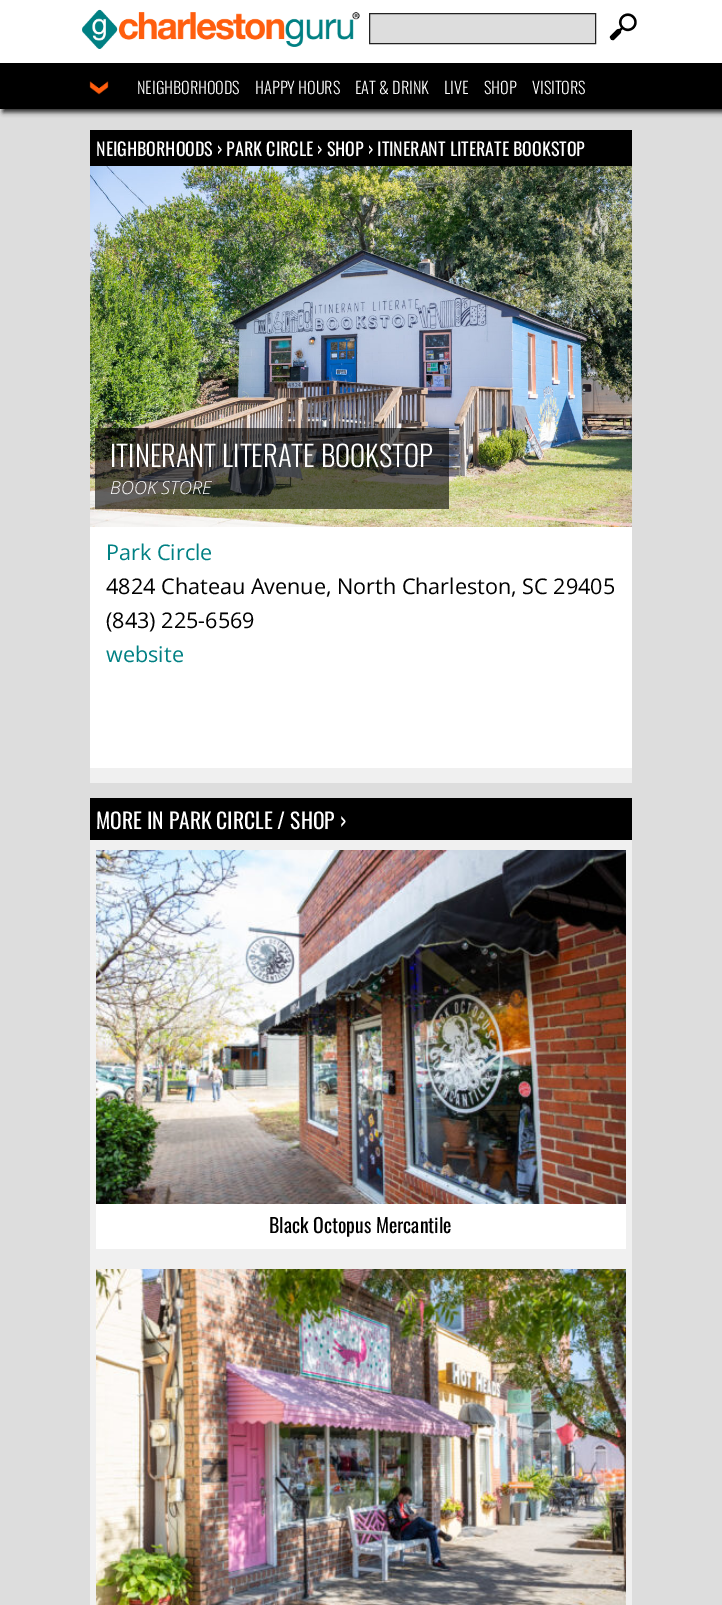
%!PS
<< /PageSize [722 1605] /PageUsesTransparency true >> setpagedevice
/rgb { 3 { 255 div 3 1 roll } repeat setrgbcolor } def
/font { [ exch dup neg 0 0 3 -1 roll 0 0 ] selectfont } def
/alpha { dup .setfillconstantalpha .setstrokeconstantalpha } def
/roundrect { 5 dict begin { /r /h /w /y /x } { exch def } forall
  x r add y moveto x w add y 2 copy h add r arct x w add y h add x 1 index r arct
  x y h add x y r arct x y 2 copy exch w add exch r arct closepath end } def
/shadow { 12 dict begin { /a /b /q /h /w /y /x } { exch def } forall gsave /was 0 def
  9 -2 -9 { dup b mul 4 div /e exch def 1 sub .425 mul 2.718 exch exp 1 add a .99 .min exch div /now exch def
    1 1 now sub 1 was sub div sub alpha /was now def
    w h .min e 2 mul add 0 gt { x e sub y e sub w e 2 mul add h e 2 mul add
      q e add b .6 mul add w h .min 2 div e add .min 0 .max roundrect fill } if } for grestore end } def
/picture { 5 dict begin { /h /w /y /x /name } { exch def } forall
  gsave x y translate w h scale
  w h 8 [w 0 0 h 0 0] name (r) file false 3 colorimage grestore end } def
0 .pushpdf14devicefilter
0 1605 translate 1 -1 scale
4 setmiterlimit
221 221 221 rgb
0 0 722 1605 rectfill
34 34 34 rgb
3 3 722 109 0 2.5 1 shadow
255 255 255 rgb
0 0 722 63 rectfill
(img/1.rgb) 82 9 278 40 picture
0 0 0 rgb
0 63 722 46 rectfill
(img/2.rgb) 89 81 20 14 picture
221 221 221 rgb
369.5 13.5 moveto 595.5 13.5 lineto 595.5 43.5 lineto 369.5 43.5 lineto closepath gsave fill grestore
34 34 34 rgb
stroke
(img/3.rgb) 609 13 28 28 picture
240 240 240 rgb
90 768 542 15 rectfill
0 0 0 rgb
90 130 542 36 rectfill
(img/4.rgb) 90 166 542 361 picture
0.6 alpha
[
  [95 428 354 81 0 0 0]
] { aload pop rgb rectfill } forall
1 alpha
[
  [90 527 542 241 255 255 255]
  [90 798 542 42 0 0 0]
  [90 840 542 765 240 240 240]
] { aload pop rgb rectfill } forall
(img/5.rgb) 96 850 530 354 picture
255 255 255 rgb
96 1204 530 45 rectfill
(img/6.rgb) 96 1269 530 336 picture
/Oswald-Light 16.25 font
[
  [(NEIGHBORHOODS) 137 94]
  [(HAPPY HOURS) 255 94]
  [(EAT & DRINK) 355 94]
  [(LIVE) 444 94]
  [(SHOP) 484 94]
  [(VISITORS) 532 94]
] { aload pop moveto show } forall
/Oswald-Regular 18 font
96 156 moveto (NEIGHBORHOODS › PARK CIRCLE › SHOP › ITINERANT LITERATE BOOKSTOP) show
/Oswald-Light 28.75 font
110 467 moveto (ITINERANT LITERATE BOOKSTOP) show
/OpenSans-LightItalic 18 font
110 494 moveto (BOOK STORE) show
/OpenSans-Regular 21.6 font
0 128 131 rgb
106 560 moveto (Park Circle) show
0 0 0 rgb
106 594 moveto (4824 Chateau Avenue, North Charleston, SC 29405) show
106 628 moveto (\(843\) 225-6569) show
0 128 131 rgb
106 662 moveto (website) show
/Oswald-Regular 21.6 font
255 255 255 rgb
96 829 moveto (MORE IN PARK CIRCLE / SHOP ›) show
/Oswald-Regular 19.75 font
0 0 0 rgb
269 1233 moveto (Black Octopus Mercantile) show
.poppdf14devicefilter showpage
